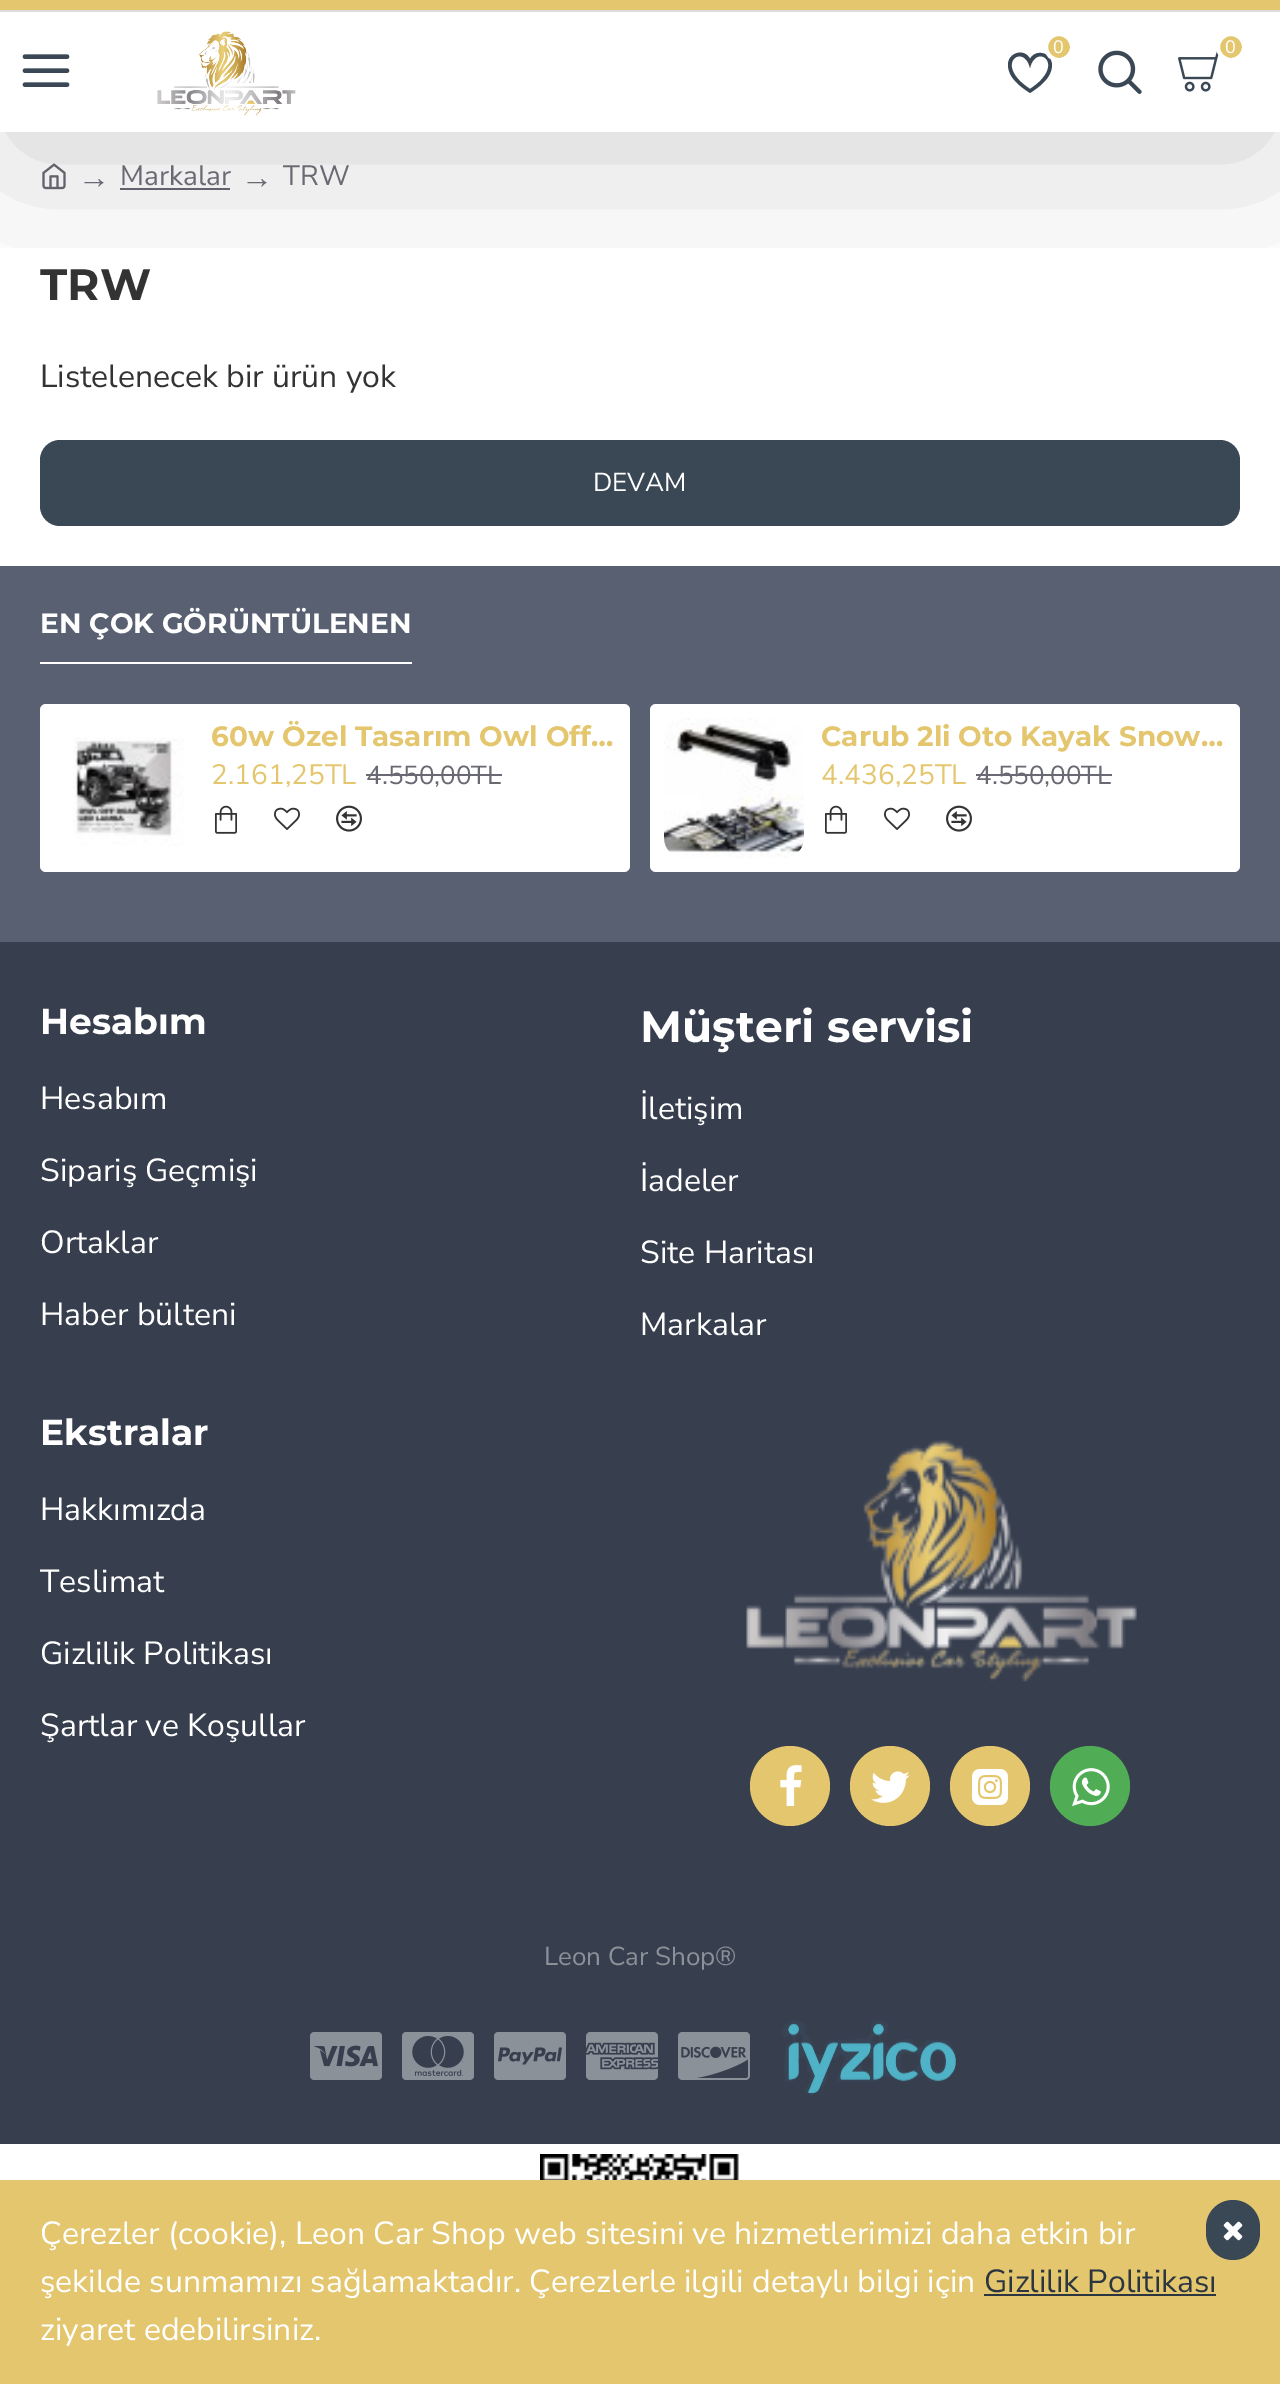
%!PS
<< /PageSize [1280 2384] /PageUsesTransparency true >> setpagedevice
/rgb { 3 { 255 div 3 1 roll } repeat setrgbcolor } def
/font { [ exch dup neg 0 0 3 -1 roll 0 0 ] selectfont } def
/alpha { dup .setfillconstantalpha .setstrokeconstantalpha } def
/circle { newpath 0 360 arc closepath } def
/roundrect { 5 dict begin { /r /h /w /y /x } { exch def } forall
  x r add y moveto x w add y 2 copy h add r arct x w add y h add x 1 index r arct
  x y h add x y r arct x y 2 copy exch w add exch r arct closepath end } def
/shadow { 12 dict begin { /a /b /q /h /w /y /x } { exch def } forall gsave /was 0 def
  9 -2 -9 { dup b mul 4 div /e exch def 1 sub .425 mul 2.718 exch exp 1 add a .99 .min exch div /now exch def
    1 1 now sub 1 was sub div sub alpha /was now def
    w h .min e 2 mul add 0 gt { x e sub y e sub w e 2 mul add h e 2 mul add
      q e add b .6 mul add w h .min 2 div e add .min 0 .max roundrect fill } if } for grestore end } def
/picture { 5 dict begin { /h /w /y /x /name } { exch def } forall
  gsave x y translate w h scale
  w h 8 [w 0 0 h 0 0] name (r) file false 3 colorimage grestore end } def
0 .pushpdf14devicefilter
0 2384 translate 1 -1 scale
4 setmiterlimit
255 255 255 rgb
0 0 1280 2384 rectfill
(img/5.rgb) 42 163 24 27 picture
105 105 115 rgb
120 188 110 2 rectfill
gsave
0 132 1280 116 rectclip
0 0 0 rgb
20 62 1240 80 0 90 0.2 shadow
grestore
228 198 110 rgb
0 0 1280 10 rectfill
221 221 221 rgb
0 10 1280 2 rectfill
(img/1.rgb) 157 31 139 85 picture
58 71 84 rgb
1030 68 moveto 1036 42 1068 64 1030 89 curveto 992 64 1024 42 1030 68 curveto closepath 1008 65 moveto 1008 78 1021 87 1030 93 curveto 1039 87 1052 78 1052 65 curveto 1052 63 1051 60 1050 58 curveto 1045 51 1034 51 1030 59 curveto 1025 48 1008 52 1008 65 curveto closepath fill
228 198 110 rgb
1059 47 13 circle gsave fill grestore
255 255 255 rgb
4 setlinewidth
stroke
(img/2.rgb) 1178 51 41 41 picture
228 198 110 rgb
1231 47 13 circle gsave fill grestore
255 255 255 rgb
stroke
(img/3.rgb) 22 54 48 33 picture
(img/4.rgb) 1098 50 44 44 picture
58 71 84 rgb
40 440 1200 86 20 roundrect fill
88 96 114 rgb
0 566 1280 376 rectfill
255 255 255 rgb
40 662 372 2 rectfill
40 704 590 168 6 roundrect fill
(img/6.rgb) 73 737 111 109 picture
105 105 115 rgb
366 774 136 2 rectfill
(img/7.rgb) 215 805 22 29 picture
(img/8.rgb) 274 807 26 23 picture
(img/9.rgb) 336 805 26 27 picture
255 255 255 rgb
650 704 590 168 6 roundrect fill
(img/10.rgb) 664 718 140 140 picture
105 105 115 rgb
976 774 136 2 rectfill
(img/7.rgb) 825 805 22 29 picture
(img/8.rgb) 884 807 26 23 picture
(img/9.rgb) 946 805 26 27 picture
55 62 78 rgb
0 942 1280 1202 rectfill
(img/11.rgb) 746 1440 391 242 picture
228 198 110 rgb
790 1786 40 circle fill
(img/12.rgb) 780 1765 22 41 picture
890 1786 40 circle fill
(img/13.rgb) 871 1771 39 32 picture
990 1786 40 circle fill
(img/14.rgb) 972 1769 36 36 picture
80 173 85 rgb
1090 1786 40 circle fill
(img/15.rgb) 1072 1768 38 39 picture
(img/16.rgb) 310 2032 72 48 picture
(img/17.rgb) 402 2032 72 48 picture
(img/18.rgb) 494 2032 72 48 picture
(img/19.rgb) 586 2032 72 48 picture
(img/20.rgb) 678 2032 72 48 picture
(img/21.rgb) 781 2020 175 75 picture
(img/22.rgb) 540 2154 199 26 picture
228 198 110 rgb
0 2180 1280 204 rectfill
44 54 64 rgb
984 2294 232 2 rectfill
58 71 84 rgb
1206 2200 54 60 27 roundrect fill
(img/23.rgb) 1223 2221 20 20 picture
/NunitoSans-Regular 18 font
255 255 255 rgb
1053 53 moveto (0) show
1225 53 moveto (0) show
/LiberationSerif-Regular 32 font
105 105 115 rgb
78 188 moveto (→) show
/NunitoSans-Regular 28 font
120 185 moveto (Markalar) show
/LiberationSerif-Regular 32 font
241 188 moveto (→) show
/NunitoSans-Regular 28 font
283 185 moveto (TRW) show
/Montserrat-Bold 44 font
51 51 51 rgb
40 300 moveto (TRW) show
/NunitoSans-Regular 32 font
40 387 moveto (Listelenecek bir ürün yok) show
/NunitoSans-Regular 26 font
255 255 255 rgb
593 491 moveto (DEVAM) show
/Montserrat-Bold 28 font
40 633 moveto (EN ÇOK GÖRÜNTÜLENEN) show
228 198 110 rgb
211 746 moveto (60w Özel Tasarım Owl Off…) show
/NunitoSans-Regular 28 font
211 784 moveto (2.161,25TL) show
/NunitoSans-Regular 26 font
105 105 115 rgb
366 784 moveto (4.550,00TL) show
/Montserrat-Bold 28 font
228 198 110 rgb
821 746 moveto (Carub 2li Oto Kayak Snow…) show
/NunitoSans-Regular 28 font
821 784 moveto (4.436,25TL) show
/NunitoSans-Regular 26 font
105 105 115 rgb
976 784 moveto (4.550,00TL) show
/Montserrat-Bold 36 font
255 255 255 rgb
40 1034 moveto (Hesabım) show
/NunitoSans-Regular 32 font
[
  [(Hesabım) 40 1109]
  [(Sipariş Geçmişi) 40 1181]
  [(Ortaklar) 40 1253]
  [(Haber bülteni) 40 1325]
] { aload pop moveto show } forall
/Montserrat-Bold 44 font
640 1042 moveto (Müşteri servisi) show
/NunitoSans-Regular 32 font
[
  [(İletişim) 640 1119]
  [(İadeler) 640 1191]
  [(Site Haritası) 640 1263]
  [(Markalar) 640 1335]
] { aload pop moveto show } forall
/Montserrat-Bold 36 font
40 1445 moveto (Ekstralar) show
/NunitoSans-Regular 32 font
[
  [(Hakkımızda) 40 1520]
  [(Teslimat) 40 1592]
  [(Gizlilik Politikası) 40 1664]
  [(Şartlar ve Koşullar) 40 1736]
] { aload pop moveto show } forall
/NunitoSans-Regular 26 font
139 145 152 rgb
544 1965 moveto (Leon Car Shop®) show
/NunitoSans-Regular 32 font
255 255 255 rgb
40 2244 moveto (Çerezler \(cookie\), Leon Car Shop web sitesini ve hizmetlerimizi daha etkin bir) show
40 2292 moveto (şekilde sunmamızı sağlamaktadır. Çerezlerle ilgili detaylı bilgi için) show
44 54 64 rgb
984 2292 moveto (Gizlilik Politikası) show
255 255 255 rgb
40 2340 moveto (ziyaret edebilirsiniz.) show
.poppdf14devicefilter showpage
